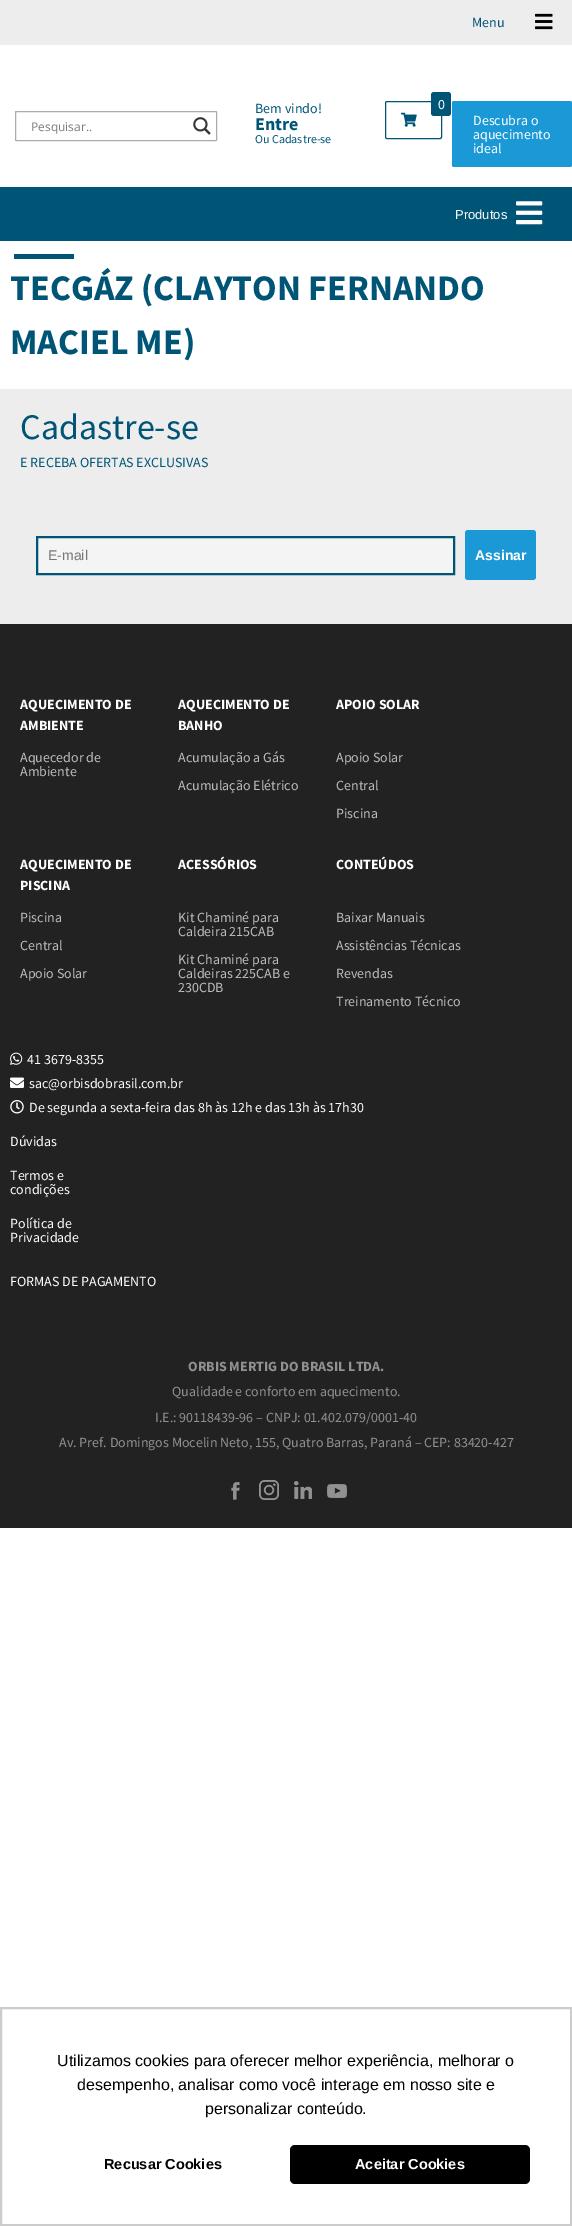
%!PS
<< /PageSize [572 2226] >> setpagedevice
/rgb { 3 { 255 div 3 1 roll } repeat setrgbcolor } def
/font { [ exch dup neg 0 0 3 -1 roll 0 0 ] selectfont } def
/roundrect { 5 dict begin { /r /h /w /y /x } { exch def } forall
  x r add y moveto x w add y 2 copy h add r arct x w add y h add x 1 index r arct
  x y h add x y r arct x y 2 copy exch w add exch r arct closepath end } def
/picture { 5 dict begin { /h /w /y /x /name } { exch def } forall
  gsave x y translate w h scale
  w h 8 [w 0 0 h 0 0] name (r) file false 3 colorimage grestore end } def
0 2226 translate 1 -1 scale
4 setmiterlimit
255 255 255 rgb
0 0 572 2226 rectfill
237 237 237 rgb
0 0 572 45 rectfill
(img/1.rgb) 535 13 18 17 picture
169 172 174 rgb
15.5 111.5 201 29 0.5 roundrect stroke
(img/2.rgb) 193 117 18 18 picture
0 85 119 rgb
385.5 101.5 56 37 1.5 roundrect stroke
431 92 20 24 3 roundrect fill
(img/3.rgb) 401 112 16 15 picture
27 153 215 rgb
452 101 120 66 2 roundrect fill
0 85 119 rgb
0 187 572 54 rectfill
(img/4.rgb) 516 201 27 24 picture
14 254 60 5 rectfill
237 237 237 rgb
0 389 572 235 rectfill
244 244 244 rgb
37 537 moveto 454 537 lineto 454 574 lineto 37 574 lineto closepath gsave fill grestore
0 85 119 rgb
2 setlinewidth
stroke
27 153 215 rgb
465 530 71 50 3 roundrect fill
34 34 34 rgb
0 624 572 904 rectfill
(img/5.rgb) 10 1052 13 13 picture
(img/6.rgb) 10 1077 14 11 picture
(img/7.rgb) 10 1100 14 14 picture
(img/8.rgb) 231 1482 9 18 picture
(img/9.rgb) 259 1480 20 20 picture
(img/10.rgb) 294 1481 18 18 picture
(img/11.rgb) 327 1484 20 14 picture
204 204 204 rgb
1 2008 570 217 rectstroke
0 0 0 rgb
290 2145 240 39 5 roundrect fill
/SourceSansPro-Regular 14 font
0 85 119 rgb
472 27 moveto (Menu) show
/OpenSans-Regular 12 font
125 125 125 rgb
31 131 moveto (Pesquisar..) show
/SourceSansPro-Regular 14 font
0 85 119 rgb
255 113 moveto (Bem vindo!) show
/SourceSansPro-Bold 18 font
255 130 moveto (Entre) show
/SourceSansPro-Regular 12 font
255 143 moveto (Ou Cadastre-se) show
/SourceSansPro-Regular 14 font
255 255 255 rgb
[
  [(0) 438 109]
  [(Descubra o) 473 125]
  [(aquecimento) 473 139]
  [(ideal) 473 153]
] { aload pop moveto show } forall
/LiberationSans-Regular 13 font
455 219 moveto (Produtos) show
/SourceSansPro-Bold 36 font
0 85 119 rgb
10 300 moveto (TECGÁZ \(CLAYTON FERNANDO) show
10 354 moveto (MACIEL ME\)) show
/SourceSansPro-Regular 36 font
20 439 moveto (Cadastre-se) show
/SourceSansPro-Regular 14 font
20 467 moveto (E RECEBA OFERTAS EXCLUSIVAS) show
/LiberationSans-Regular 14 font
117 117 117 rgb
48 560 moveto (E-mail) show
/LiberationSans-Bold 14 font
255 255 255 rgb
475 560 moveto (Assinar) show
/SourceSansPro-Bold 14 font
20 709 moveto (AQUECIMENTO DE) show
20 730 moveto (AMBIENTE) show
/SourceSansPro-Regular 14 font
189 189 189 rgb
20 762 moveto (Aquecedor de) show
20 776 moveto (Ambiente) show
/SourceSansPro-Bold 14 font
255 255 255 rgb
178 709 moveto (AQUECIMENTO DE) show
178 730 moveto (BANHO) show
/SourceSansPro-Regular 14 font
189 189 189 rgb
178 762 moveto (Acumulação a Gás) show
178 790 moveto (Acumulação Elétrico) show
/SourceSansPro-Bold 14 font
255 255 255 rgb
336 709 moveto (APOIO SOLAR) show
/SourceSansPro-Regular 14 font
189 189 189 rgb
[
  [(Apoio Solar) 336 762]
  [(Central) 336 790]
  [(Piscina) 336 818]
] { aload pop moveto show } forall
/SourceSansPro-Bold 14 font
255 255 255 rgb
20 869 moveto (AQUECIMENTO DE) show
20 890 moveto (PISCINA) show
/SourceSansPro-Regular 14 font
189 189 189 rgb
[
  [(Piscina) 20 922]
  [(Central) 20 950]
  [(Apoio Solar) 20 978]
] { aload pop moveto show } forall
/SourceSansPro-Bold 14 font
255 255 255 rgb
178 869 moveto (ACESSÓRIOS) show
/SourceSansPro-Regular 14 font
189 189 189 rgb
[
  [(Kit Chaminé para) 178 922]
  [(Caldeira 215CAB) 178 936]
  [(Kit Chaminé para) 178 964]
  [(Caldeiras 225CAB e) 178 978]
  [(230CDB) 178 992]
] { aload pop moveto show } forall
/SourceSansPro-Bold 14 font
255 255 255 rgb
336 869 moveto (CONTEÚDOS) show
/SourceSansPro-Regular 14 font
189 189 189 rgb
[
  [(Baixar Manuais) 336 922]
  [(Assistências Técnicas) 336 950]
  [(Revendas) 336 978]
  [(Treinamento Técnico) 336 1006]
] { aload pop moveto show } forall
255 255 255 rgb
[
  [(41 3679-8355) 27 1064]
  [(sac@orbisdobrasil.com.br) 29 1088]
  [(De segunda a sexta-feira das 8h às 12h e das 13h às 17h30) 29 1112]
  [(Dúvidas) 10 1146]
  [(Termos e) 10 1180]
  [(condições) 10 1194]
  [(Política de) 10 1228]
  [(Privacidade) 10 1242]
  [(FORMAS DE PAGAMENTO) 10 1286]
] { aload pop moveto show } forall
/SourceSansPro-Bold 14 font
145 145 145 rgb
188 1371 moveto (ORBIS MERTIG DO BRASIL LTDA.) show
/SourceSansPro-Regular 14 font
[
  [(Qualidade e conforto em aquecimento.) 172 1396]
  [(I.E.: 90118439-96 – CNPJ: 01.402.079/0001-40) 155 1422]
  [(Av. Pref. Domingos Mocelin Neto, 155, Quatro Barras, Paraná – CEP: 83420-427) 59 1447]
] { aload pop moveto show } forall
/LiberationSans-Regular 16 font
0 0 0 rgb
[
  [(Utilizamos cookies para oferecer melhor experiência, melhorar o) 57 2066]
  [(desempenho, analisar como você interage em nosso site e) 77 2090]
  [(personalizar conteúdo.) 205 2114]
] { aload pop moveto show } forall
/LiberationSans-Bold 14.5 font
104 2169 moveto (Recusar Cookies) show
255 255 255 rgb
355 2169 moveto (Aceitar Cookies) show
showpage
